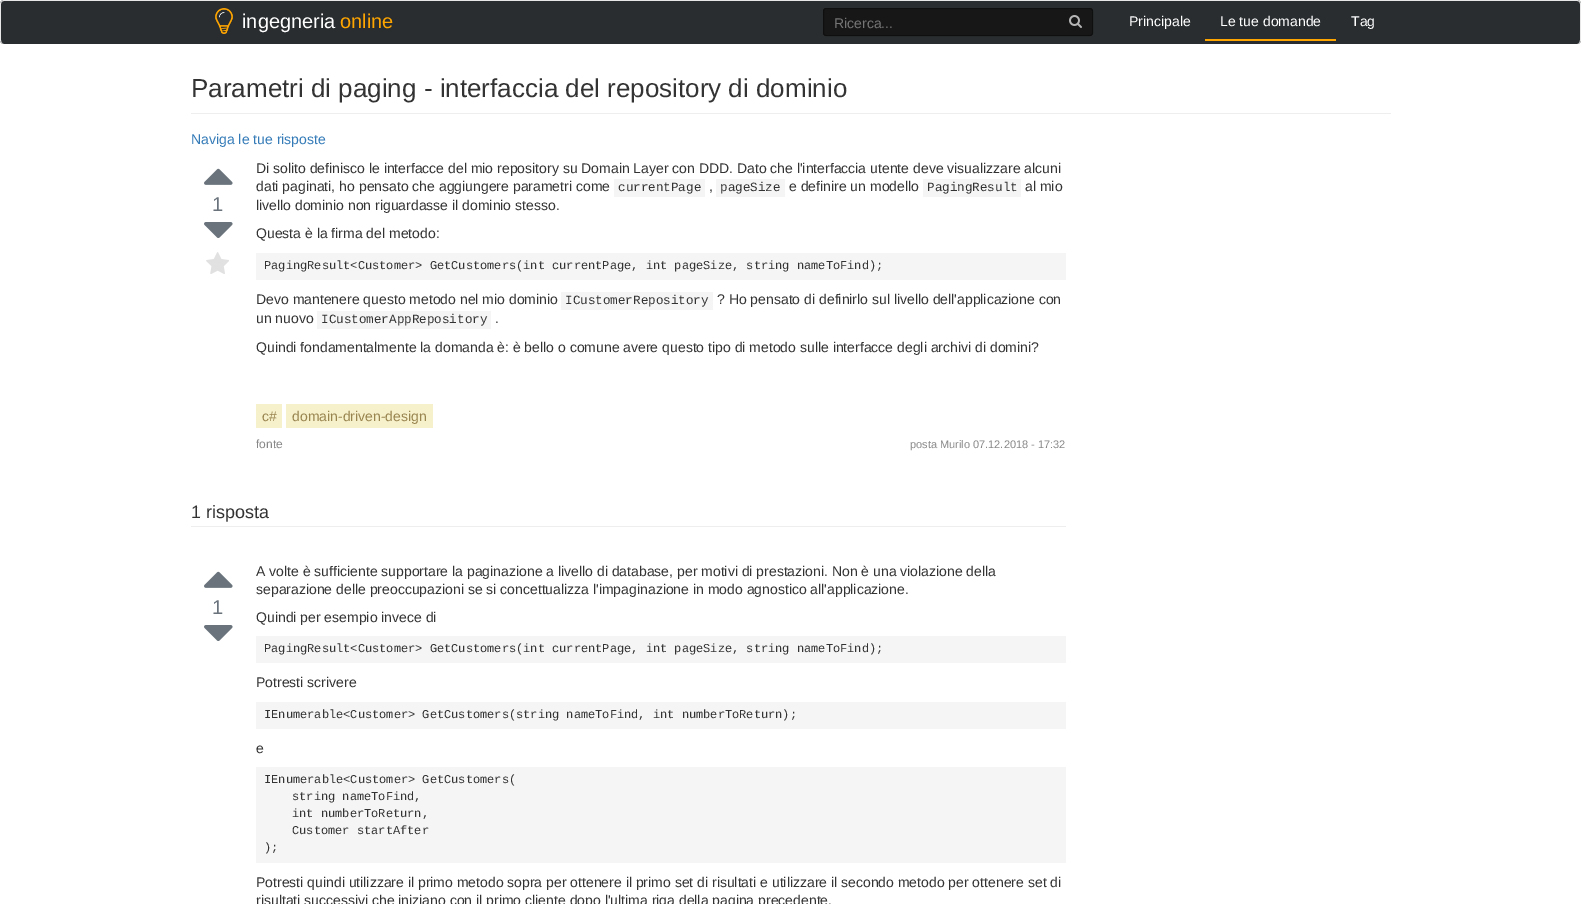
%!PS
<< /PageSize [1581 904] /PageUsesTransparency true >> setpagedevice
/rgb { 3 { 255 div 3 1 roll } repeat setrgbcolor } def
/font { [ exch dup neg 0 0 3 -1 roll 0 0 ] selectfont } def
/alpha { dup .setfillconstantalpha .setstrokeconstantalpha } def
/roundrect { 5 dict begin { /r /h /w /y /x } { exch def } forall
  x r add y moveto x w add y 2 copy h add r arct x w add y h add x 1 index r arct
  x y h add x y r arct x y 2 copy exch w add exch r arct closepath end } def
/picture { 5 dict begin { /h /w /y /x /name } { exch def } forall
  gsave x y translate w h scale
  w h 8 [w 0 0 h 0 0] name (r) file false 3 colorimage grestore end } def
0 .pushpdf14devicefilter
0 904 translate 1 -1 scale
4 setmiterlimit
255 255 255 rgb
0 0 1581 904 rectfill
41 45 47 rgb
0 0 1581 44 4 roundrect fill
231 231 231 rgb
4 0 moveto 1577 0 lineto 1579 0 1581 2 1581 4 curveto 1581 40 lineto 1581 42 1579 44 1577 44 curveto 4 44 lineto 2 44 0 42 0 40 curveto 0 4 lineto 0 2 2 0 4 0 curveto closepath 4 1 moveto 1577 1 lineto 1579 1 1580 2 1580 4 curveto 1580 40 lineto 1580 42 1579 44 1577 44 curveto 4 44 lineto 2 44 1 42 1 40 curveto 1 4 lineto 1 2 2 1 4 1 curveto closepath eofill
(img/1.rgb) 215 8 18 26 picture
23 23 23 rgb
823 8 270 28 3 roundrect fill
0.36 alpha
0 0 0 rgb
823.5 8.5 269 27 2.5 roundrect stroke
1 alpha
(img/2.rgb) 1069 15 13 13 picture
255 165 0 rgb
1205 39 131 2 rectfill
238 238 238 rgb
191 113 1200 1 rectfill
(img/3.rgb) 204 168 29 17 picture
(img/4.rgb) 204 222 29 16 picture
(img/5.rgb) 206 252 23 22 picture
[
  [614 179 91 18 245 245 245]
  [716 179 69 18 245 245 245]
  [923 179 98 18 245 245 245]
  [256 253 810 27 245 245 245]
  [561 292 152 18 245 245 245]
  [317 311 174 18 245 245 245]
  [256 404 26 24 247 241 203]
  [286 404 147 24 247 241 203]
  [191 526 875 1 238 238 238]
] { aload pop rgb rectfill } forall
(img/3.rgb) 204 571 29 17 picture
(img/4.rgb) 204 625 29 16 picture
[
  [256 636 810 27 245 245 245]
  [256 702 810 27 245 245 245]
  [256 767 810 96 245 245 245]
] { aload pop rgb rectfill } forall
/LiberationSans-Regular 20 font
255 255 255 rgb
242 28 moveto (ingegneria) show
255 165 0 rgb
340 28 moveto (online) show
/LiberationSans-Regular 14 font
117 117 117 rgb
834 28 moveto (Ricerca...) show
255 255 255 rgb
[
  [(Principale) 1129 26]
  [(Le tue domande) 1220 26]
  [(Tag) 1351 26]
] { aload pop moveto show } forall
/LiberationSans-Regular 26 font
51 51 51 rgb
191 97 moveto (Parametri di paging - interfaccia del repository di dominio) show
/LiberationSans-Regular 14 font
51 122 183 rgb
191 144 moveto (Naviga le tue risposte) show
/LiberationSans-Regular 20 font
106 115 124 rgb
212 211 moveto (1) show
/LiberationSans-Regular 14 font
51 51 51 rgb
256 173 moveto (Di solito definisco le interfacce del mio repository su Domain Layer con DDD. Dato che l'interfaccia utente deve visualizzare alcuni) show
256 191 moveto (dati paginati, ho pensato che aggiungere parametri come) show
/LiberationMono-Regular 12.6 font
618 191 moveto (currentPage) show
/LiberationSans-Regular 14 font
709 191 moveto (,) show
/LiberationMono-Regular 12.6 font
720 191 moveto (pageSize) show
/LiberationSans-Regular 14 font
789 191 moveto (e definire un modello) show
/LiberationMono-Regular 12.6 font
927 191 moveto (PagingResult) show
/LiberationSans-Regular 14 font
[
  [(al mio) 1025 191]
  [(livello dominio non riguardasse il dominio stesso.) 256 210]
  [(Questa è la firma del metodo:) 256 238]
] { aload pop moveto show } forall
/LiberationMono-Regular 12 font
264 269 moveto (PagingResult<Customer> GetCustomers\(int currentPage, int pageSize, string nameToFind\);) show
/LiberationSans-Regular 14 font
256 304 moveto (Devo mantenere questo metodo nel mio dominio) show
/LiberationMono-Regular 12.6 font
565 304 moveto (ICustomerRepository) show
/LiberationSans-Regular 14 font
717 304 moveto (? Ho pensato di definirlo sul livello dell'applicazione con) show
256 323 moveto (un nuovo) show
/LiberationMono-Regular 12.6 font
321 323 moveto (ICustomerAppRepository) show
/LiberationSans-Regular 14 font
495 323 moveto (.) show
256 352 moveto (Quindi fondamentalmente la domanda è: è bello o comune avere questo tipo di metodo sulle interfacce degli archivi di domini?) show
152 132 79 rgb
262 421 moveto (c#) show
292 421 moveto (domain-driven-design) show
/LiberationSans-Regular 12 font
136 136 136 rgb
256 448 moveto (fonte) show
/LiberationSans-Regular 11 font
910 448 moveto (posta Murilo 07.12.2018 - 17:32) show
/LiberationSans-Regular 18 font
51 51 51 rgb
191 518 moveto (1 risposta) show
/LiberationSans-Regular 20 font
106 115 124 rgb
212 614 moveto (1) show
/LiberationSans-Regular 14 font
51 51 51 rgb
[
  [(A volte è sufficiente supportare la paginazione a livello di database, per motivi di prestazioni. Non è una violazione della) 256 576]
  [(separazione delle preoccupazioni se si concettualizza l'impaginazione in modo agnostico all'applicazione.) 256 594]
  [(Quindi per esempio invece di) 256 622]
] { aload pop moveto show } forall
/LiberationMono-Regular 12 font
264 652 moveto (PagingResult<Customer> GetCustomers\(int currentPage, int pageSize, string nameToFind\);) show
/LiberationSans-Regular 14 font
256 687 moveto (Potresti scrivere) show
/LiberationMono-Regular 12 font
264 718 moveto (IEnumerable<Customer> GetCustomers\(string nameToFind, int numberToReturn\);) show
/LiberationSans-Regular 14 font
256 753 moveto (e) show
/LiberationMono-Regular 12 font
[
  [(IEnumerable<Customer> GetCustomers\() 264 783]
  [(string nameToFind,) 292 800]
  [(int numberToReturn,) 292 817]
  [(Customer startAfter) 292 834]
  [(\);) 264 851]
] { aload pop moveto show } forall
/LiberationSans-Regular 14 font
256 887 moveto (Potresti quindi utilizzare il primo metodo sopra per ottenere il primo set di risultati e utilizzare il secondo metodo per ottenere set di) show
256 905 moveto (risultati successivi che iniziano con il primo cliente dopo l'ultima riga della pagina precedente.) show
.poppdf14devicefilter showpage
